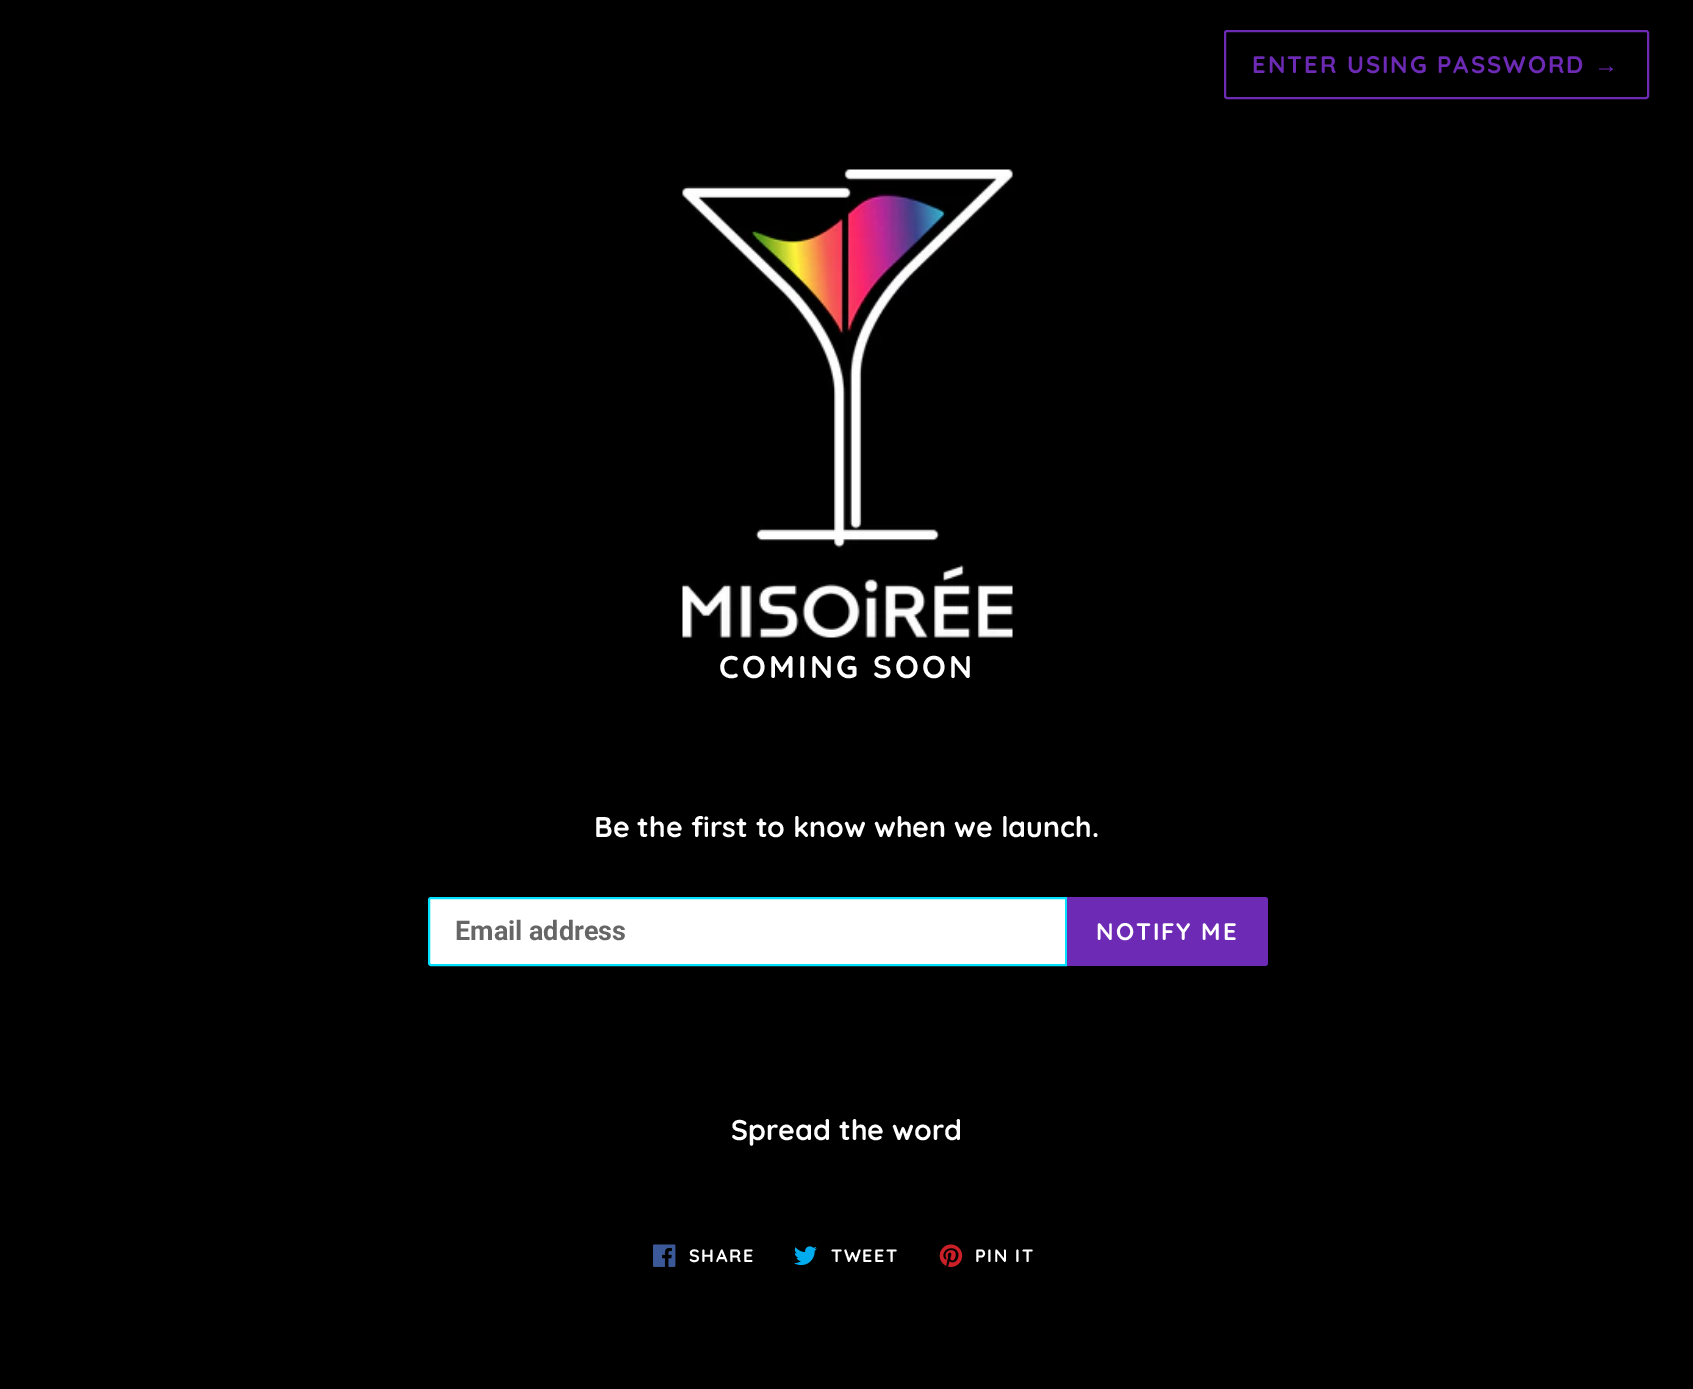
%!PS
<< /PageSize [1693 1389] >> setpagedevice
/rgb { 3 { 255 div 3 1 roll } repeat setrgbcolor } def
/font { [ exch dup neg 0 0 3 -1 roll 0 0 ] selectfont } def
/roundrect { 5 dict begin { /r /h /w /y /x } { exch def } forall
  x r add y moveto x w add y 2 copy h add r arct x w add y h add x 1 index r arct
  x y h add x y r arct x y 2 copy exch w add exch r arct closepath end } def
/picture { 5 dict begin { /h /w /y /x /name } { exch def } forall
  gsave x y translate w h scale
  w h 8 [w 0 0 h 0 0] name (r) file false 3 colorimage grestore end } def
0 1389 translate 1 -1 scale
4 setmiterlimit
0 0 0 rgb
0 0 1693 1389 rectfill
109 42 180 rgb
2 setlinewidth
1225 31 423 67 2 roundrect stroke
(img/1.rgb) 682 169 331 469 picture
255 255 255 rgb
431 898 moveto 1066 898 lineto 1066 965 lineto 431 965 lineto 430 965 429 964 429 963 curveto 429 900 lineto 429 899 430 898 431 898 curveto closepath gsave fill grestore
0 225 255 rgb
stroke
109 42 180 rgb
1067 897 moveto 1265 897 lineto 1266.5 897 1268 898.5 1268 900 curveto 1268 963 lineto 1268 964.5 1266.5 966 1265 966 curveto 1067 966 lineto closepath fill
(img/2.rgb) 653 1244 23 23 picture
(img/3.rgb) 794 1246 23 20 picture
(img/4.rgb) 939 1244 24 23 picture
/Quicksand-Bold 24 font
1252 73 moveto 1.9 0 (ENTER USING PASSWORD) ashow
/LiberationSans-Bold 24 font
1594 73 moveto 1.9 0 (→) ashow
/Quicksand-Bold 31.5 font
255 255 255 rgb
719 678 moveto 3.1 0 (COMING SOON) ashow
/Quicksand-Bold 28.5 font
594 837 moveto (Be the first to know when we launch.) show
/Roboto-Bold 27 font
102 102 102 rgb
455 940 moveto (Email address) show
/Quicksand-Bold 24 font
255 255 255 rgb
1096 940 moveto 1.9 0 (NOTIFY ME) ashow
/Quicksand-Bold 28.5 font
731 1140 moveto (Spread the word) show
/Quicksand-Bold 18 font
689 1262 moveto 1.5 0 (SHARE) ashow
831 1262 moveto 1.5 0 (TWEET) ashow
975 1262 moveto 1.5 0 (PIN IT) ashow
showpage
